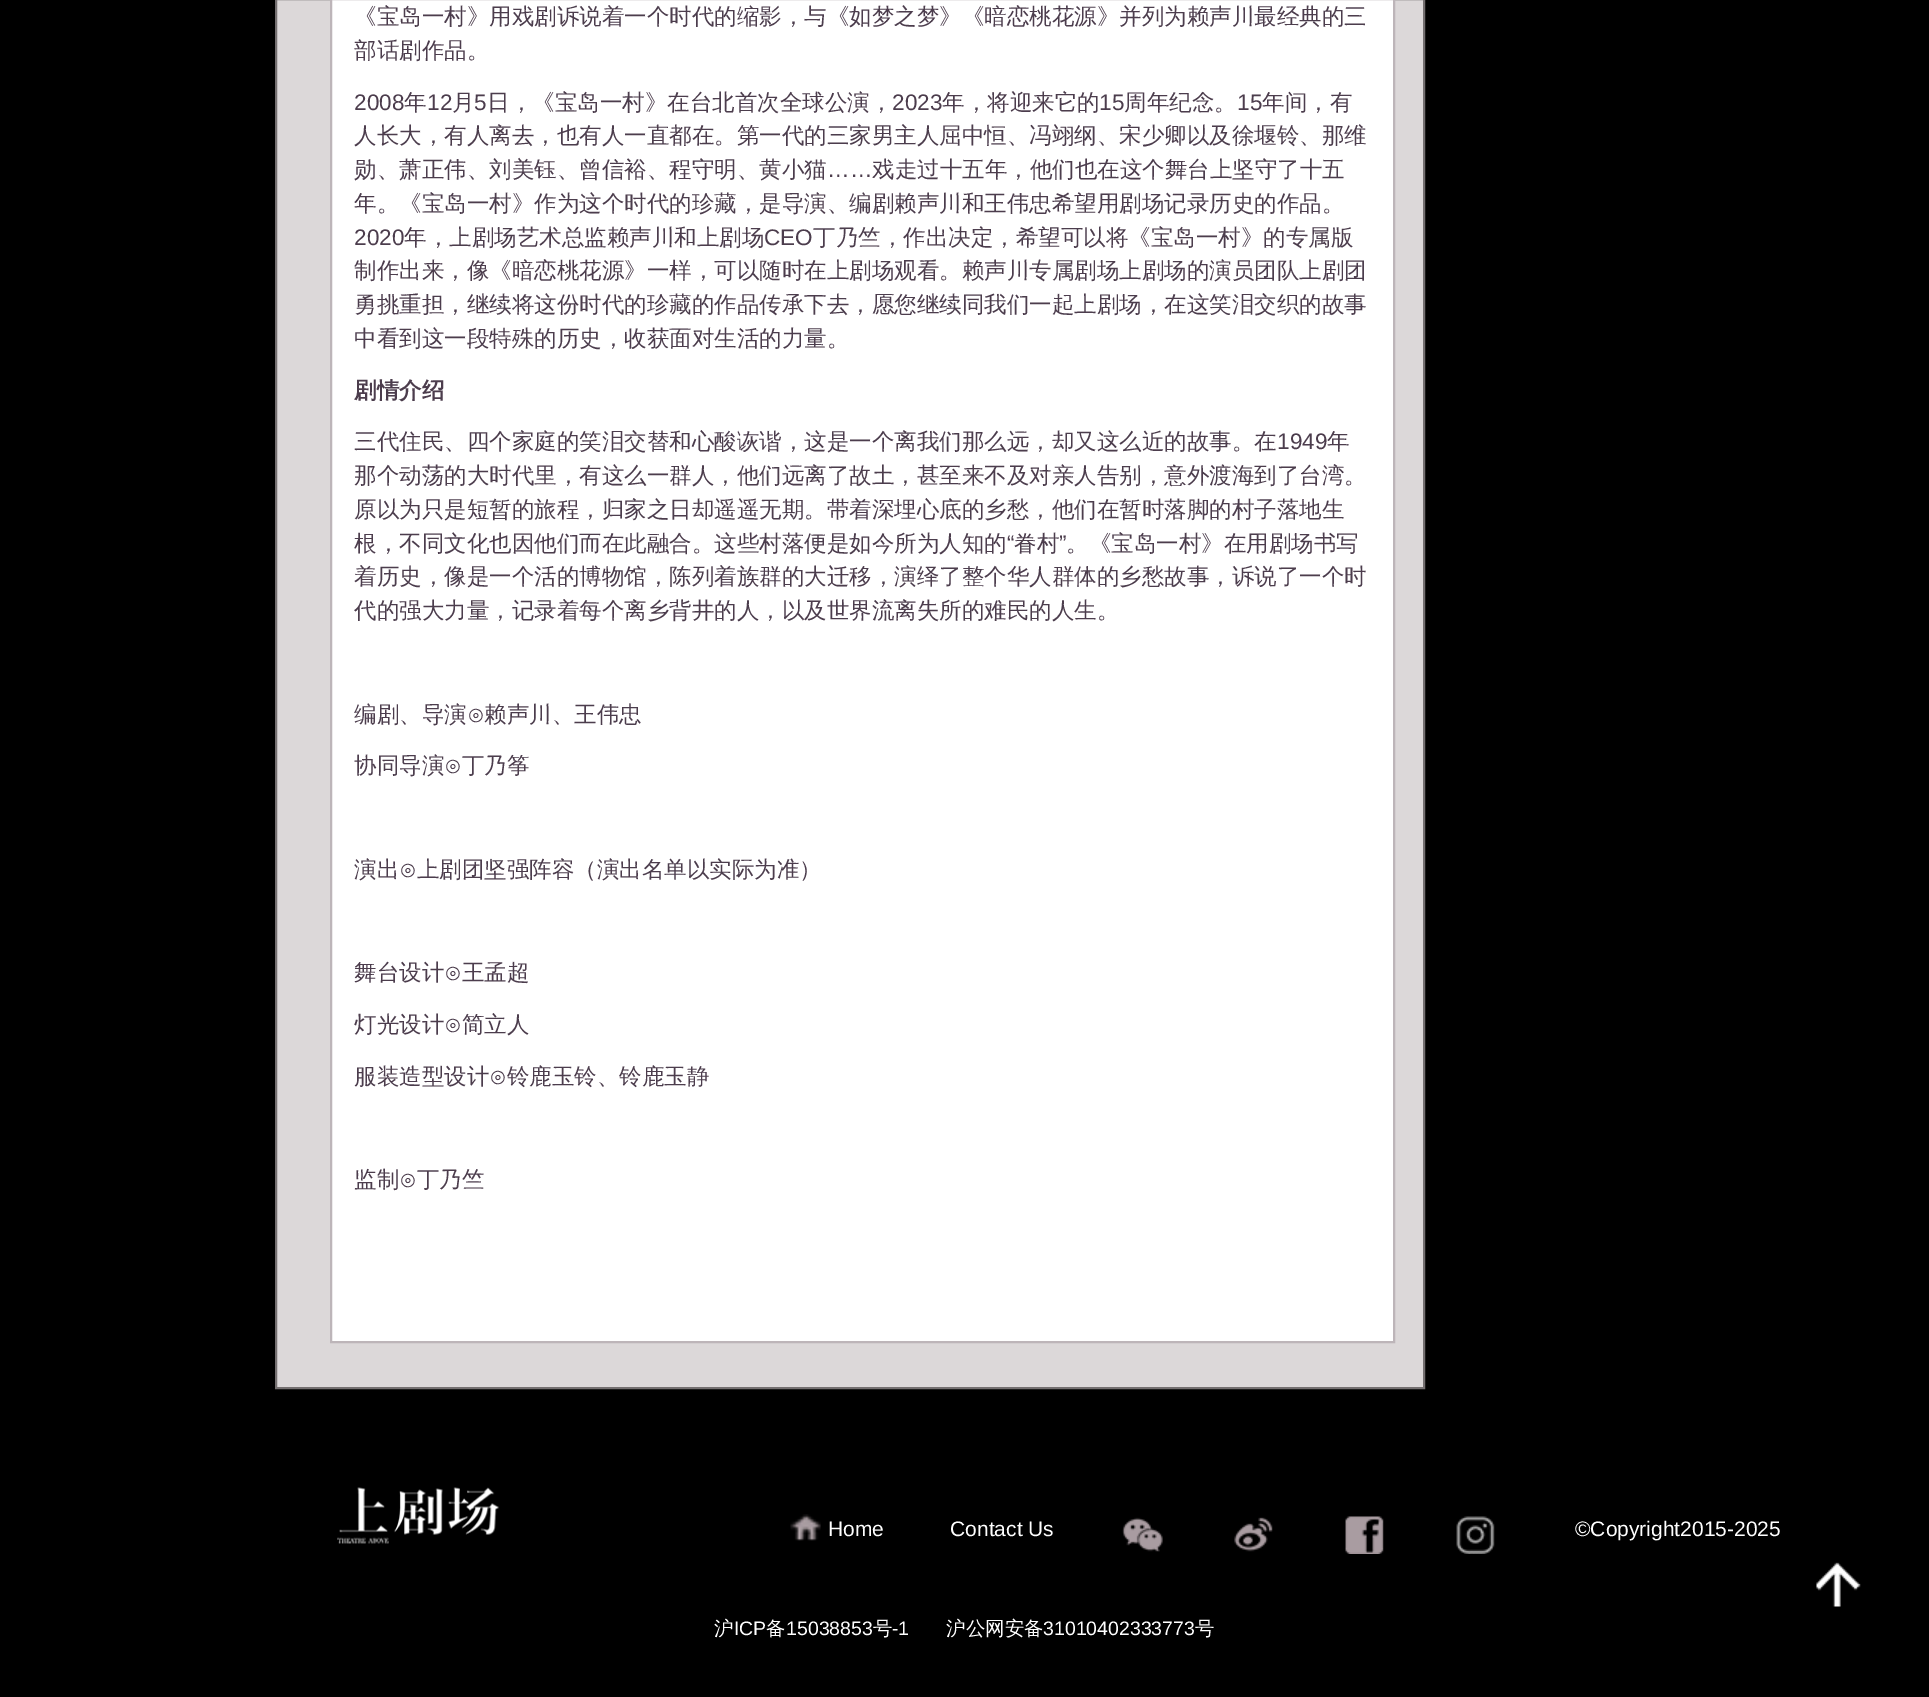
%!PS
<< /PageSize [1929 1697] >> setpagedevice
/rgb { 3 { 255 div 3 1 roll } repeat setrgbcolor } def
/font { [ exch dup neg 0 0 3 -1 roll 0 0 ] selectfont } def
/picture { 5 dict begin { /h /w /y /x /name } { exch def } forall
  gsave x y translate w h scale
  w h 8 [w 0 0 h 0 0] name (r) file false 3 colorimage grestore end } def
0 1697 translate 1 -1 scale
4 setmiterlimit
0 0 0 rgb
0 0 1929 1697 rectfill
220 216 217 rgb
276 -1 moveto 1424 -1 lineto 1424 1388 lineto 276 1388 lineto closepath gsave fill grestore
116 111 112 rgb
2 setlinewidth
stroke
255 255 255 rgb
331 -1 moveto 1394 -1 lineto 1394 1342 lineto 331 1342 lineto closepath gsave fill grestore
189 181 185 rgb
stroke
(img/1.rgb) 337 1487 162 57 picture
(img/2.rgb) 790 1514 31 27 picture
(img/3.rgb) 1122 1517 41 35 picture
(img/4.rgb) 1234 1517 39 35 picture
(img/5.rgb) 1345 1516 39 38 picture
(img/6.rgb) 1456 1516 39 38 picture
(img/7.rgb) 1816 1562 45 45 picture
/WenQuanYiZenHei-Medium 22.5 font
76 61 77 rgb
354 24 moveto (《宝岛一村》用戏剧诉说着一个时代的缩影，与《如梦之梦》《暗恋桃花源》并列为赖声川最经典的三) show
354 58 moveto (部话剧作品。) show
/LiberationSans-Regular 22.5 font
354 110 moveto (2008) show
/WenQuanYiZenHei-Medium 22.5 font
404 110 moveto (年) show
/LiberationSans-Regular 22.5 font
427 110 moveto (12) show
/WenQuanYiZenHei-Medium 22.5 font
452 110 moveto (月) show
/LiberationSans-Regular 22.5 font
474 110 moveto (5) show
/WenQuanYiZenHei-Medium 22.5 font
487 110 moveto (日，《宝岛一村》在台北首次全球公演，) show
/LiberationSans-Regular 22.5 font
892 110 moveto (2023) show
/WenQuanYiZenHei-Medium 22.5 font
942 110 moveto (年，将迎来它的) show
/LiberationSans-Regular 22.5 font
1099 110 moveto (15) show
/WenQuanYiZenHei-Medium 22.5 font
1124 110 moveto (周年纪念。) show
/LiberationSans-Regular 22.5 font
1237 110 moveto (15) show
/WenQuanYiZenHei-Medium 22.5 font
[
  [(年间，有) 1262 110]
  [(人长大，有人离去，也有人一直都在。第一代的三家男主人屈中恒、冯翊纲、宋少卿以及徐堰铃、那维) 354 143]
  [(勋、萧正伟、刘美钰、曾信裕、程守明、黄小猫) 354 177]
] { aload pop moveto show } forall
/LiberationSans-Regular 22.5 font
827 177 moveto (……) show
/WenQuanYiZenHei-Medium 22.5 font
872 177 moveto (戏走过十五年，他们也在这个舞台上坚守了十五) show
354 211 moveto (年。《宝岛一村》作为这个时代的珍藏，是导演、编剧赖声川和王伟忠希望用剧场记录历史的作品。) show
/LiberationSans-Regular 22.5 font
354 245 moveto (2020) show
/WenQuanYiZenHei-Medium 22.5 font
404 245 moveto (年，上剧场艺术总监赖声川和上剧场) show
/LiberationSans-Regular 22.5 font
764 245 moveto (CEO) show
/WenQuanYiZenHei-Medium 22.5 font
[
  [(丁乃竺，作出决定，希望可以将《宝岛一村》的专属版) 813 245]
  [(制作出来，像《暗恋桃花源》一样，可以随时在上剧场观看。赖声川专属剧场上剧场的演员团队上剧团) 354 278]
  [(勇挑重担，继续将这份时代的珍藏的作品传承下去，愿您继续同我们一起上剧场，在这笑泪交织的故事) 354 312]
  [(中看到这一段特殊的历史，收获面对生活的力量。) 354 346]
] { aload pop moveto show } forall
/WenQuanYiZenHei-Bold 22.5 font
354 398 moveto (剧情介绍) show
/WenQuanYiZenHei-Medium 22.5 font
354 449 moveto (三代住民、四个家庭的笑泪交替和心酸诙谐，这是一个离我们那么远，却又这么近的故事。在) show
/LiberationSans-Regular 22.5 font
1277 449 moveto (1949) show
/WenQuanYiZenHei-Medium 22.5 font
[
  [(年) 1327 449]
  [(那个动荡的大时代里，有这么一群人，他们远离了故土，甚至来不及对亲人告别，意外渡海到了台湾。) 354 483]
  [(原以为只是短暂的旅程，归家之日却遥遥无期。带着深埋心底的乡愁，他们在暂时落脚的村子落地生) 354 517]
  [(根，不同文化也因他们而在此融合。这些村落便是如今所为人知的) 354 551]
] { aload pop moveto show } forall
/LiberationSans-Regular 22.5 font
1007 551 moveto (“) show
/WenQuanYiZenHei-Medium 22.5 font
1014 551 moveto (眷村) show
/LiberationSans-Regular 22.5 font
1059 551 moveto (”) show
/WenQuanYiZenHei-Medium 22.5 font
[
  [(。《宝岛一村》在用剧场书写) 1066 551]
  [(着历史，像是一个活的博物馆，陈列着族群的大迁移，演绎了整个华人群体的乡愁故事，诉说了一个时) 354 584]
  [(代的强大力量，记录着每个离乡背井的人，以及世界流离失所的难民的人生。) 354 618]
  [(编剧、导演⊙赖声川、王伟忠) 354 722]
  [(协同导演⊙丁乃筝) 354 773]
  [(演出⊙上剧团坚强阵容（演出名单以实际为准）) 354 877]
  [(舞台设计⊙王孟超) 354 980]
  [(灯光设计⊙简立人) 354 1032]
  [(服装造型设计⊙铃鹿玉铃、铃鹿玉静) 354 1084]
  [(监制⊙丁乃竺) 354 1187]
] { aload pop moveto show } forall
/LiberationSans-Regular 21 font
255 255 255 rgb
[
  [(Home) 828 1536]
  [(Contact Us) 950 1536]
  [(©Copyright2015-2025) 1575 1536]
] { aload pop moveto show } forall
/WenQuanYiZenHei-Medium 19.5 font
714 1635 moveto (沪) show
/LiberationSans-Regular 19.5 font
734 1635 moveto (ICP) show
/WenQuanYiZenHei-Medium 19.5 font
766 1635 moveto (备) show
/LiberationSans-Regular 19.5 font
786 1635 moveto (15038853) show
/WenQuanYiZenHei-Medium 19.5 font
873 1635 moveto (号) show
/LiberationSans-Regular 19.5 font
892 1635 moveto (-1) show
/WenQuanYiZenHei-Medium 19.5 font
946 1635 moveto (沪公网安备) show
/LiberationSans-Regular 19.5 font
1043 1635 moveto (31010402333773) show
/WenQuanYiZenHei-Medium 19.5 font
1195 1635 moveto (号) show
showpage
